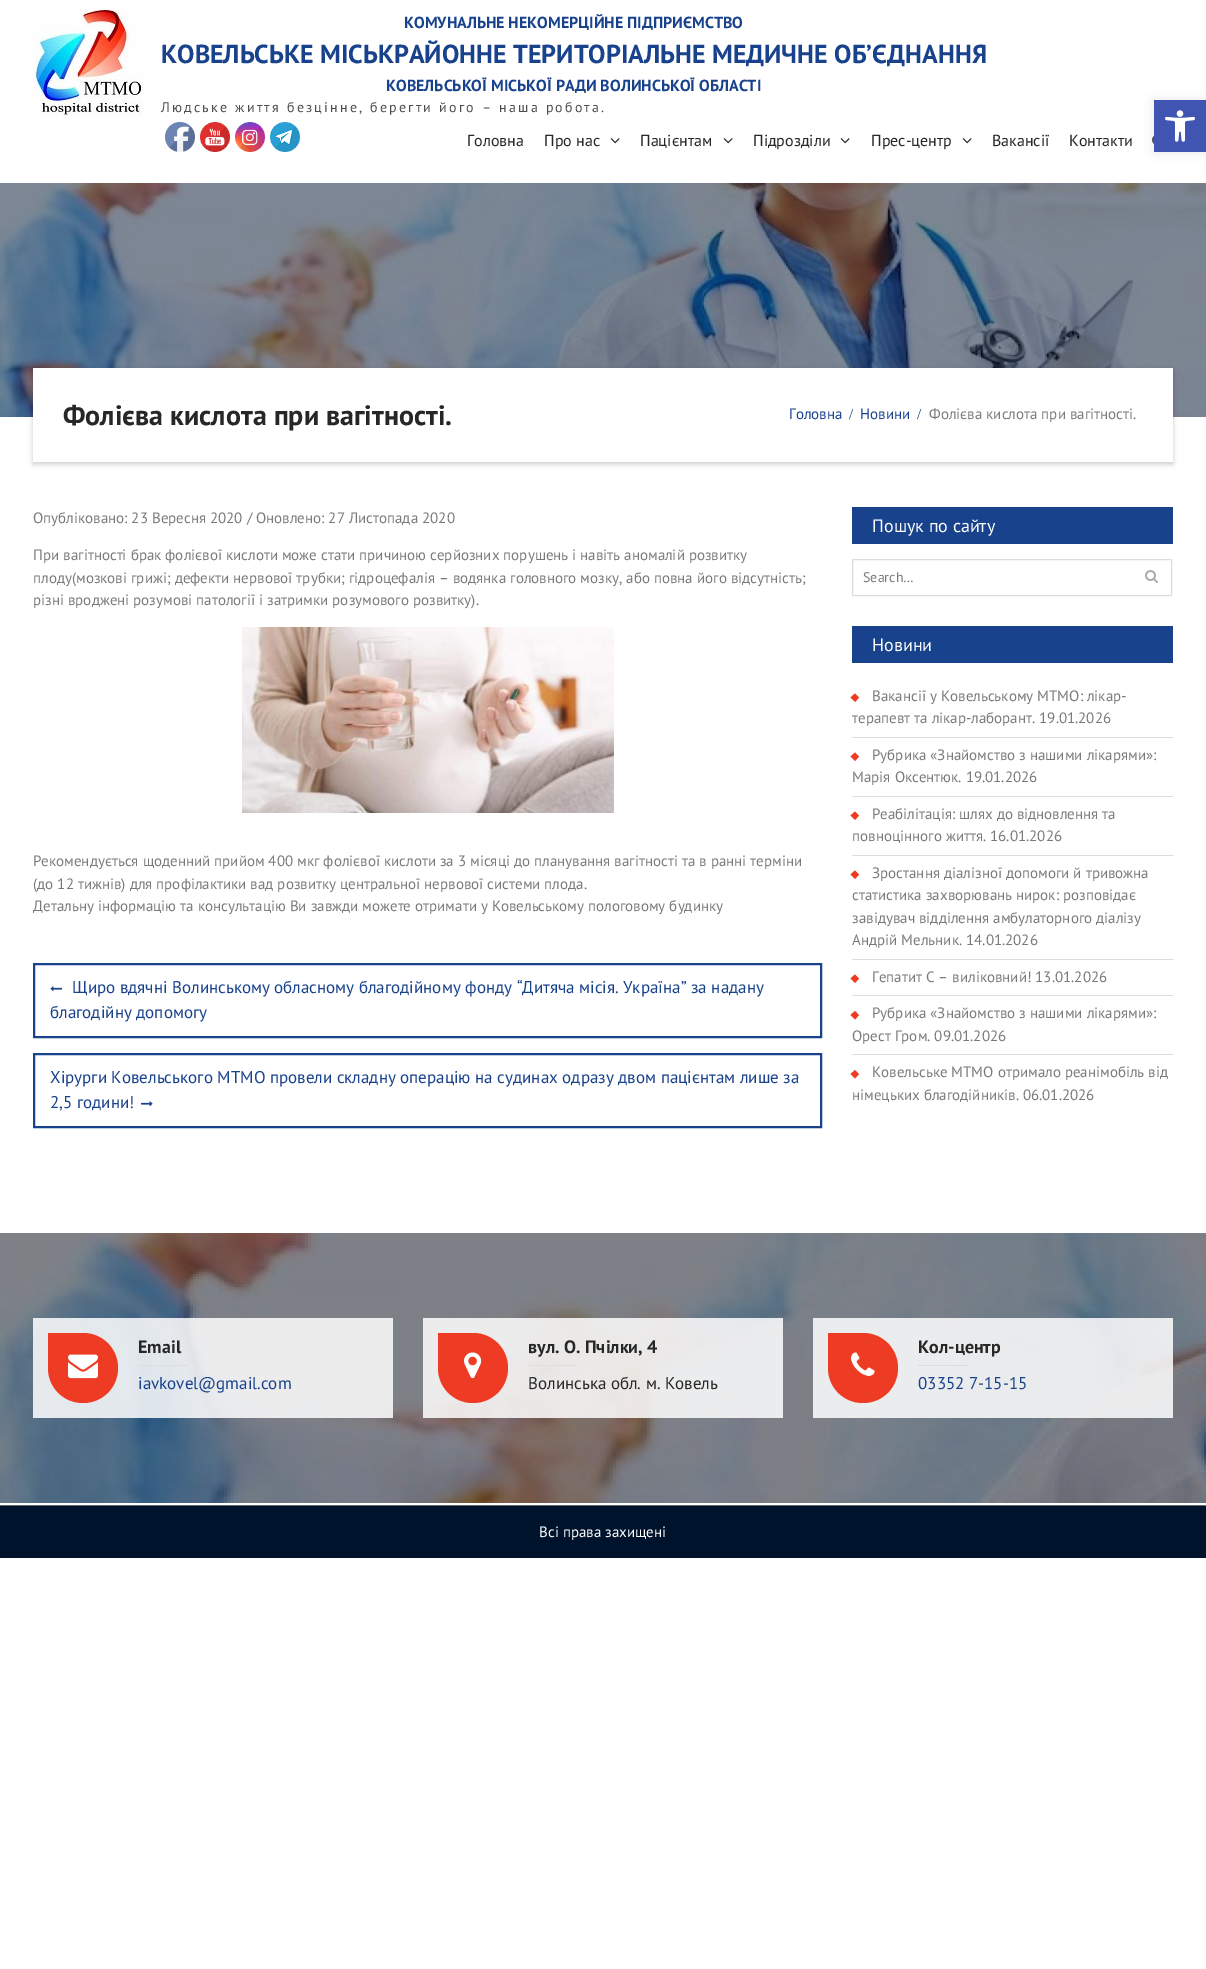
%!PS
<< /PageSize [1206 1969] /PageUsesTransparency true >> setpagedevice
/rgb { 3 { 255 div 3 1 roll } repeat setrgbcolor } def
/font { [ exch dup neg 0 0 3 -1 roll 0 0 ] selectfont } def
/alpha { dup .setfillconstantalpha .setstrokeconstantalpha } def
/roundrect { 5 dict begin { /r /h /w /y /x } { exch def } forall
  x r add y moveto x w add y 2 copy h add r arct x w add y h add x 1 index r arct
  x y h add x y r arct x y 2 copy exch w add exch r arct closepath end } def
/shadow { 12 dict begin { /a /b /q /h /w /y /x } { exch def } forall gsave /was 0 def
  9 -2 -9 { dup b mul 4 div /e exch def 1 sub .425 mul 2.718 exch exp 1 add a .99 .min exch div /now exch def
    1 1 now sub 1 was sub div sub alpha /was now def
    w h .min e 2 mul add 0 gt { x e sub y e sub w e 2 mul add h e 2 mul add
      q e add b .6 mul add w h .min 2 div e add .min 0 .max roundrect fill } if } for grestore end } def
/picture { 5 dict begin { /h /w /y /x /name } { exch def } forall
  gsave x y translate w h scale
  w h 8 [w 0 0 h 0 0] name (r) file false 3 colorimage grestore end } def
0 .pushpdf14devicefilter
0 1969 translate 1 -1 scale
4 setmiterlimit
255 255 255 rgb
0 0 1206 1969 rectfill
(img/1.rgb) 33 10 112 108 picture
(img/2.rgb) 165 122 30 30 picture
(img/3.rgb) 200 122 30 30 picture
(img/4.rgb) 235 122 30 30 picture
(img/5.rgb) 270 122 30 30 picture
(img/6.rgb) 610 138 10 6 picture
(img/6.rgb) 723 138 10 6 picture
(img/6.rgb) 840 138 10 6 picture
(img/6.rgb) 962 138 10 6 picture
(img/7.rgb) 1152 136 2 8 picture
(img/8.rgb) 0 183 1206 234 picture
0 0 0 rgb
33 370 1140 94 0 2.5 0.2 shadow
255 255 255 rgb
33 368 1140 94 rectfill
(img/9.rgb) 242 627 372 186 picture
24 66 140 rgb
2 setlinewidth
34 964 787 73 rectstroke
(img/10.rgb) 50 986 12 6 picture
34 1054 787 73 rectstroke
(img/11.rgb) 141 1101 12 6 picture
852 507 321 37 rectfill
221 221 221 rgb
1 setlinewidth
852.5 559.5 319 36 rectstroke
(img/12.rgb) 1145 570 13 13 picture
24 66 140 rgb
852 626 321 37 rectfill
238 59 36 rgb
850.5 697.5 moveto 855 693.5 lineto 859 697.5 lineto 855 702 lineto closepath fill
221 221 221 rgb
852 737 321 1 rectfill
238 59 36 rgb
850.5 756.5 moveto 855 752.5 lineto 859 756.5 lineto 855 761 lineto closepath fill
221 221 221 rgb
852 796 321 1 rectfill
238 59 36 rgb
850.5 815.5 moveto 855 811.5 lineto 859 815.5 lineto 855 820 lineto closepath fill
221 221 221 rgb
852 855 321 1 rectfill
238 59 36 rgb
850.5 874.5 moveto 855 870.5 lineto 859 874.5 lineto 855 879 lineto closepath fill
221 221 221 rgb
852 959 321 1 rectfill
238 59 36 rgb
850.5 978.5 moveto 855 974.5 lineto 859 978.5 lineto 855 983 lineto closepath fill
221 221 221 rgb
852 995 321 1 rectfill
238 59 36 rgb
850.5 1015 moveto 855 1011 lineto 859 1015 lineto 855 1019.5 lineto closepath fill
221 221 221 rgb
852 1054 321 1 rectfill
238 59 36 rgb
850.5 1074 moveto 855 1070 lineto 859 1074 lineto 855 1078.5 lineto closepath fill
(img/13.rgb) 0 1233 1206 270 picture
0.85 alpha
255 255 255 rgb
33 1318 360 100 rectfill
1 alpha
238 59 36 rgb
48 1333 moveto 83 1333 lineto 102.5 1333 118 1348.5 118 1368 curveto 118 1387.5 102.5 1403 83 1403 curveto 63.5 1403 48 1387.5 48 1368 curveto closepath fill
(img/14.rgb) 68 1354 30 25 picture
221 221 221 rgb
138 1365 50 1 rectfill
0.85 alpha
255 255 255 rgb
423 1318 360 100 rectfill
1 alpha
238 59 36 rgb
438 1333 moveto 473 1333 lineto 492.5 1333 508 1348.5 508 1368 curveto 508 1387.5 492.5 1403 473 1403 curveto 453.5 1403 438 1387.5 438 1368 curveto closepath fill
(img/15.rgb) 464 1352 18 27 picture
221 221 221 rgb
528 1365 50 1 rectfill
0.85 alpha
255 255 255 rgb
813 1318 360 100 rectfill
1 alpha
238 59 36 rgb
828 1333 moveto 863 1333 lineto 882.5 1333 898 1348.5 898 1368 curveto 898 1387.5 882.5 1403 863 1403 curveto 843.5 1403 828 1387.5 828 1368 curveto closepath fill
(img/16.rgb) 851 1352 24 24 picture
[
  [918 1365 50 1 221 221 221]
  [0 1506 1206 52 0 19 44]
  [0 1505 1206 1 102 102 102]
] { aload pop rgb rectfill } forall
0 0 0 rgb
1154 100 52 52 0 5 0.1 shadow
64 84 178 rgb
1154 100 52 52 rectfill
(img/17.rgb) 1165 110 30 32 picture
/PTSans-Bold 16 font
24 66 140 rgb
404 28 moveto (КОМУНАЛЬНЕ НЕКОМЕРЦІЙНЕ ПІДПРИЄМСТВО) show
/PTSans-Bold 26 font
161 63 moveto (КОВЕЛЬСЬКЕ МІСЬКРАЙОННЕ ТЕРИТОРІАЛЬНЕ МЕДИЧНЕ ОБ’ЄДНАННЯ) show
/PTSans-Bold 16 font
386 91 moveto (КОВЕЛЬСЬКОЇ МІСЬКОЇ РАДИ ВОЛИНСЬКОЇ ОБЛАСТІ) show
/PTSans-Regular 14 font
77 77 77 rgb
161 112 moveto 2.2 0 (Людське життя безцінне, берегти його – наша робота.) ashow
/PTSans-Regular 16 font
39 39 39 rgb
[
  [(Головна) 467 146]
  [(Про нас) 544 146]
  [(Пацієнтам) 640 146]
  [(Підрозділи) 753 146]
  [(Прес-центр) 871 146]
  [(Вакансії) 992 146]
  [(Контакти) 1069 146]
] { aload pop moveto show } forall
/PTSans-Bold 28 font
63 425 moveto (Фолієва кислота при вагітності.) show
/PTSans-Regular 15 font
24 66 140 rgb
789 419 moveto (Головна) show
/LiberationSerif-Regular 15 font
849 419 moveto (/) show
/PTSans-Regular 15 font
860 419 moveto (Новини) show
/LiberationSerif-Regular 15 font
917 419 moveto (/) show
/PTSans-Regular 15 font
122 122 122 rgb
[
  [(Фолієва кислота при вагітності.) 929 419]
  [(Опубліковано: 23 Вересня 2020 / Оновлено: 27 Листопада 2020) 33 523]
  [(При вагітності брак фолієвої кислоти може стати причиною серйозних порушень і навіть аномалій розвитку) 33 560]
  [(плоду\(мозкові грижі; дефекти нервової трубки; гідроцефалія – водянка головного мозку, або повна його відсутність;) 33 583]
  [(різні вроджені розумові патології і затримки розумового розвитку\).) 33 605]
  [(Рекомендується щоденний прийом 400 мкг фолієвої кислоти за 3 місяці до планування вагітності та в ранні терміни) 33 866]
  [(\(до 12 тижнів\) для профілактики вад розвитку центральної нервової системи плода.) 33 889]
  [(Детальну інформацію та консультацію Ви завжди можете отримати у Ковельському пологовому будинку) 33 911]
] { aload pop moveto show } forall
/PTSans-Regular 17 font
24 66 140 rgb
[
  [(Щиро вдячні Волинському обласному благодійному фонду “Дитяча місія. Україна” за надану) 72 993]
  [(благодійну допомогу) 50 1018]
  [(Хірурги Ковельського МТМО провели складну операцію на судинах одразу двом пацієнтам лише за) 50 1083]
  [(2,5 години!) 50 1108]
] { aload pop moveto show } forall
/PTSans-Regular 18 font
255 255 255 rgb
872 532 moveto (Пошук по сайту) show
/PTSans-Regular 14 font
122 122 122 rgb
863 582 moveto (Search…) show
/PTSans-Regular 18 font
255 255 255 rgb
872 651 moveto (Новини) show
/PTSans-Regular 15 font
122 122 122 rgb
[
  [(Вакансії у Ковельському МТМО: лікар-) 872 701]
  [(терапевт та лікар-лаборант. 19.01.2026) 852 723]
  [(Рубрика «Знайомство з нашими лікарями»:) 872 760]
  [(Марія Оксентюк. 19.01.2026) 852 782]
  [(Реабілітація: шлях до відновлення та) 872 819]
  [(повноцінного життя. 16.01.2026) 852 841]
  [(Зростання діалізної допомоги й тривожна) 872 878]
  [(статистика захворювань нирок: розповідає) 852 900]
  [(завідувач відділення амбулаторного діалізу) 852 923]
  [(Андрій Мельник. 14.01.2026) 852 945]
  [(Гепатит С – виліковний! 13.01.2026) 872 982]
  [(Рубрика «Знайомство з нашими лікарями»:) 872 1018]
  [(Орест Гром. 09.01.2026) 852 1041]
  [(Ковельське МТМО отримало реанімобіль від) 872 1077]
  [(німецьких благодійників. 06.01.2026) 852 1100]
] { aload pop moveto show } forall
/PTSans-Bold 18 font
39 39 39 rgb
138 1353 moveto (Email) show
/PTSans-Regular 17 font
24 66 140 rgb
138 1389 moveto (iavkovel@gmail.com) show
/PTSans-Bold 18 font
39 39 39 rgb
528 1353 moveto (вул. О. Пчілки, 4) show
/PTSans-Regular 17 font
528 1389 moveto (Волинська обл. м. Ковель) show
/PTSans-Bold 18 font
918 1353 moveto (Кол-центр) show
/PTSans-Regular 17 font
24 66 140 rgb
918 1389 moveto (03352 7-15-15) show
/PTSans-Regular 15 font
255 255 255 rgb
539 1537 moveto (Всі права захищені) show
.poppdf14devicefilter showpage
